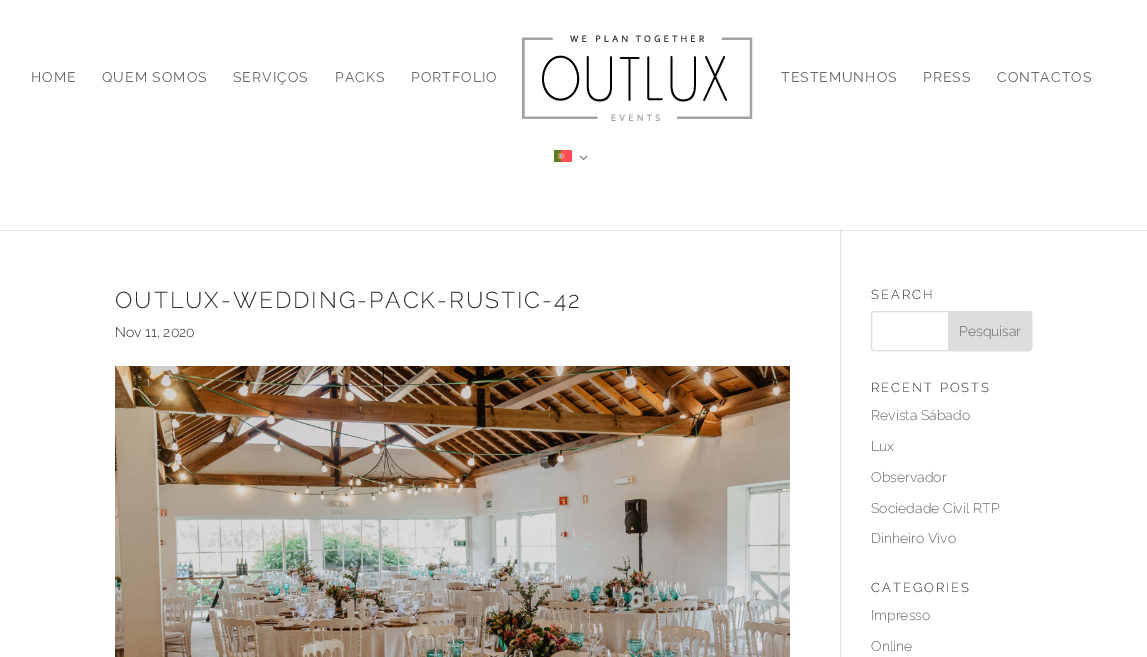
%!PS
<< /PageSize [1147 657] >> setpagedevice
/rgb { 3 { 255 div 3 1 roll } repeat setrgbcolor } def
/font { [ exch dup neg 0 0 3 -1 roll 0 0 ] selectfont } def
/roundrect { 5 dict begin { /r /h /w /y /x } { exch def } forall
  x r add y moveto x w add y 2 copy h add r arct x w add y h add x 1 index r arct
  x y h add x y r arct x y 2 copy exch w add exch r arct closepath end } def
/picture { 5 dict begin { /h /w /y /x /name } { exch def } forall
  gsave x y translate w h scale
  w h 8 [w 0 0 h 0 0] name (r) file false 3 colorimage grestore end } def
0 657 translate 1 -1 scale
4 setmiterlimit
255 255 255 rgb
0 0 1147 657 rectfill
230 230 230 rgb
0 230 1147 1 rectfill
(img/1.rgb) 522 35 231 87 picture
(img/2.rgb) 554 150 18 12 picture
(img/3.rgb) 579 155 9 5 picture
226 226 226 rgb
840 230 1 427 rectfill
203 203 203 rgb
840 230 1 1 rectfill
(img/4.rgb) 115 366 675 291 picture
221 221 221 rgb
871.5 311.5 160 39 2.5 roundrect stroke
948.5 311.5 moveto 1029 311.5 lineto 1030.5 311.5 1031.5 312.5 1031.5 314 curveto 1031.5 348 lineto 1031.5 349.5 1030.5 350.5 1029 350.5 curveto 948.5 350.5 lineto closepath gsave fill grestore
stroke
/Raleway-Regular 14 font
102 102 102 rgb
31 82 moveto 1 0 (HOME) ashow
102 82 moveto 1 0 (QUEM SOMOS) ashow
233 82 moveto 1 0 (SERVIÇOS) ashow
335 82 moveto 1 0 (PACKS) ashow
411 82 moveto 1 0 (PORTFOLIO) ashow
781 82 moveto 1 0 (TESTEMUNHOS) ashow
923 82 moveto 1 0 (PRESS) ashow
997 82 moveto 1 0 (CONTACTOS) ashow
/Raleway-Light 23 font
45 45 45 rgb
115 308 moveto 2 0 (OUTLUX-WEDDING-PACK-RUSTIC-42) ashow
/Raleway-Light 14 font
115 337 moveto (Nov 11, 2020) show
/Raleway-Light 13 font
871 299 moveto 2 0 (SEARCH) ashow
/Raleway-Light 14 font
102 102 102 rgb
959 336 moveto (Pesquisar) show
/Raleway-Light 13 font
45 45 45 rgb
871 392 moveto 2 0 (RECENT POSTS) ashow
/Raleway-Light 14 font
102 102 102 rgb
[
  [(Revista Sábado) 871 420]
  [(Lux) 871 451]
  [(Observador) 871 482]
  [(Sociedade Civil RTP) 871 513]
  [(Dinheiro Vivo) 871 543]
] { aload pop moveto show } forall
/Raleway-Light 13 font
45 45 45 rgb
871 592 moveto 2 0 (CATEGORIES) ashow
/Raleway-Light 14 font
102 102 102 rgb
871 620 moveto (Impresso) show
871 651 moveto (Online) show
showpage
